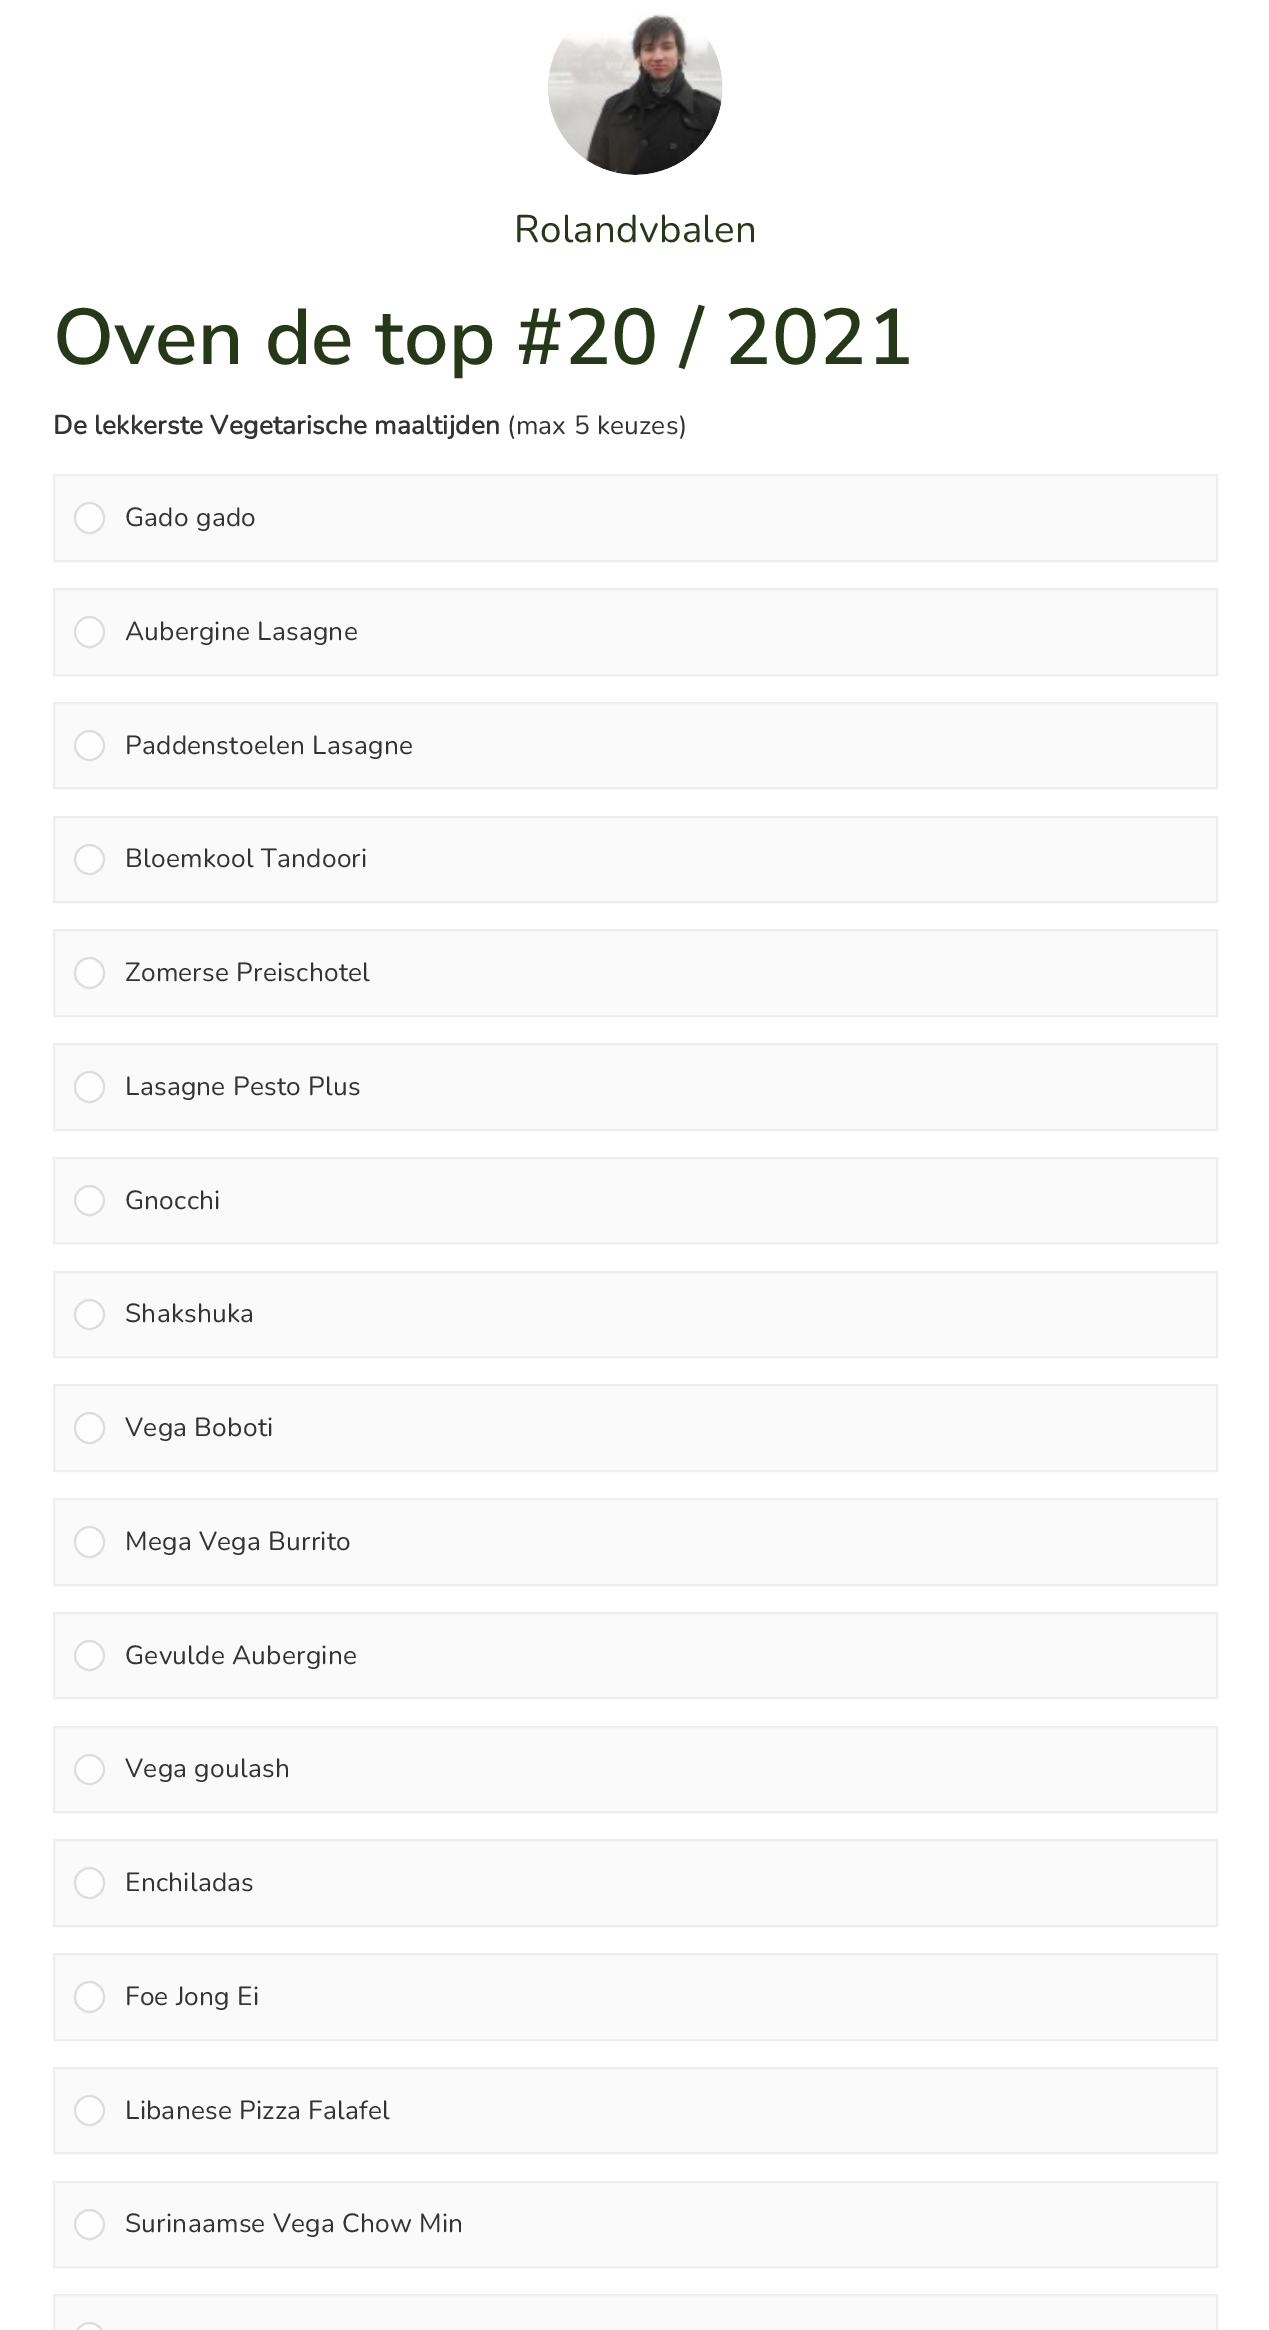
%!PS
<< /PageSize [1269 2330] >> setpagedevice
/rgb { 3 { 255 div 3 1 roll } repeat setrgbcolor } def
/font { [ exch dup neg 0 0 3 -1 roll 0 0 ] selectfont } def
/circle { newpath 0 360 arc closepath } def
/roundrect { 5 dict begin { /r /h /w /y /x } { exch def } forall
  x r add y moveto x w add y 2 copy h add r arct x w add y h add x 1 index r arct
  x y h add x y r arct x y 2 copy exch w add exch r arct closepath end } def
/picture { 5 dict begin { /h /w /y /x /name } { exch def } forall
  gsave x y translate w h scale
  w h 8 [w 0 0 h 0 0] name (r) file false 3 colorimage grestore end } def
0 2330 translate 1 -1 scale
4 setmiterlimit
255 255 255 rgb
0 0 1269 2330 rectfill
(img/1.rgb) 548 13 175 162 picture
250 250 250 rgb
54 475 moveto 1217 475 lineto 1217 561 lineto 54 561 lineto closepath gsave fill grestore
238 238 238 rgb
2 setlinewidth
stroke
254 254 254 rgb
75 503 29 30 14.5 roundrect gsave fill grestore
221 221 221 rgb
stroke
250 250 250 rgb
54 589 moveto 1217 589 lineto 1217 675 lineto 54 675 lineto closepath gsave fill grestore
238 238 238 rgb
stroke
254 254 254 rgb
75 617 29 30 14.5 roundrect gsave fill grestore
221 221 221 rgb
stroke
250 250 250 rgb
54 703 moveto 1217 703 lineto 1217 788 lineto 54 788 lineto closepath gsave fill grestore
238 238 238 rgb
stroke
254 254 254 rgb
89.5 745.5 14.5 circle gsave fill grestore
221 221 221 rgb
stroke
250 250 250 rgb
54 817 moveto 1217 817 lineto 1217 902 lineto 54 902 lineto closepath gsave fill grestore
238 238 238 rgb
stroke
254 254 254 rgb
89.5 859.5 14.5 circle gsave fill grestore
221 221 221 rgb
stroke
250 250 250 rgb
54 930 moveto 1217 930 lineto 1217 1016 lineto 54 1016 lineto closepath gsave fill grestore
238 238 238 rgb
stroke
254 254 254 rgb
75 958 29 30 14.5 roundrect gsave fill grestore
221 221 221 rgb
stroke
250 250 250 rgb
54 1044 moveto 1217 1044 lineto 1217 1130 lineto 54 1130 lineto closepath gsave fill grestore
238 238 238 rgb
stroke
254 254 254 rgb
75 1072 29 30 14.5 roundrect gsave fill grestore
221 221 221 rgb
stroke
250 250 250 rgb
54 1158 moveto 1217 1158 lineto 1217 1243 lineto 54 1243 lineto closepath gsave fill grestore
238 238 238 rgb
stroke
254 254 254 rgb
89.5 1200.5 14.5 circle gsave fill grestore
221 221 221 rgb
stroke
250 250 250 rgb
54 1272 moveto 1217 1272 lineto 1217 1357 lineto 54 1357 lineto closepath gsave fill grestore
238 238 238 rgb
stroke
254 254 254 rgb
89.5 1314.5 14.5 circle gsave fill grestore
221 221 221 rgb
stroke
250 250 250 rgb
54 1385 moveto 1217 1385 lineto 1217 1471 lineto 54 1471 lineto closepath gsave fill grestore
238 238 238 rgb
stroke
254 254 254 rgb
75 1413 29 30 14.5 roundrect gsave fill grestore
221 221 221 rgb
stroke
250 250 250 rgb
54 1499 moveto 1217 1499 lineto 1217 1585 lineto 54 1585 lineto closepath gsave fill grestore
238 238 238 rgb
stroke
254 254 254 rgb
75 1527 29 30 14.5 roundrect gsave fill grestore
221 221 221 rgb
stroke
250 250 250 rgb
54 1613 moveto 1217 1613 lineto 1217 1698 lineto 54 1698 lineto closepath gsave fill grestore
238 238 238 rgb
stroke
254 254 254 rgb
89.5 1655.5 14.5 circle gsave fill grestore
221 221 221 rgb
stroke
250 250 250 rgb
54 1727 moveto 1217 1727 lineto 1217 1812 lineto 54 1812 lineto closepath gsave fill grestore
238 238 238 rgb
stroke
254 254 254 rgb
89.5 1769.5 14.5 circle gsave fill grestore
221 221 221 rgb
stroke
250 250 250 rgb
54 1840 moveto 1217 1840 lineto 1217 1926 lineto 54 1926 lineto closepath gsave fill grestore
238 238 238 rgb
stroke
254 254 254 rgb
75 1868 29 30 14.5 roundrect gsave fill grestore
221 221 221 rgb
stroke
250 250 250 rgb
54 1954 moveto 1217 1954 lineto 1217 2040 lineto 54 2040 lineto closepath gsave fill grestore
238 238 238 rgb
stroke
254 254 254 rgb
75 1982 29 30 14.5 roundrect gsave fill grestore
221 221 221 rgb
stroke
250 250 250 rgb
54 2068 moveto 1217 2068 lineto 1217 2153 lineto 54 2153 lineto closepath gsave fill grestore
238 238 238 rgb
stroke
254 254 254 rgb
89.5 2110.5 14.5 circle gsave fill grestore
221 221 221 rgb
stroke
250 250 250 rgb
54 2182 moveto 1217 2182 lineto 1217 2267 lineto 54 2267 lineto closepath gsave fill grestore
238 238 238 rgb
stroke
254 254 254 rgb
89.5 2224.5 14.5 circle gsave fill grestore
221 221 221 rgb
stroke
250 250 250 rgb
54 2295 moveto 1217 2295 lineto 1217 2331 lineto 54 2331 lineto closepath gsave fill grestore
238 238 238 rgb
stroke
254 254 254 rgb
75 2323 29 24 14.5 roundrect gsave fill grestore
221 221 221 rgb
stroke
/Nunito-ExtraLight 38.5 font
37 56 23 rgb
514 242 moveto 0.25 0 (Rolandvbalen) ashow
/NunitoSans-SemiBold 78.75 font
53 364 moveto 0.25 0 (Oven de top #20 / 2021) ashow
/Nunito-Bold 26.25 font
51 51 51 rgb
53 434 moveto 0.25 0 (De lekkerste Vegetarische maaltijden) ashow
/Nunito-ExtraLight 26.25 font
507 434 moveto 0.25 0 (\(max 5 keuzes\)) ashow
125 526 moveto 0.25 0 (Gado gado) ashow
125 640 moveto 0.25 0 (Aubergine Lasagne) ashow
125 754 moveto 0.25 0 (Paddenstoelen Lasagne) ashow
125 867 moveto 0.25 0 (Bloemkool Tandoori) ashow
125 981 moveto 0.25 0 (Zomerse Preischotel) ashow
125 1095 moveto 0.25 0 (Lasagne Pesto Plus) ashow
125 1209 moveto 0.25 0 (Gnocchi) ashow
125 1322 moveto 0.25 0 (Shakshuka) ashow
125 1436 moveto 0.25 0 (Vega Boboti) ashow
125 1550 moveto 0.25 0 (Mega Vega Burrito) ashow
125 1664 moveto 0.25 0 (Gevulde Aubergine) ashow
125 1777 moveto 0.25 0 (Vega goulash) ashow
125 1891 moveto 0.25 0 (Enchiladas) ashow
125 2005 moveto 0.25 0 (Foe Jong Ei) ashow
125 2119 moveto 0.25 0 (Libanese Pizza Falafel) ashow
125 2232 moveto 0.25 0 (Surinaamse Vega Chow Min) ashow
showpage
